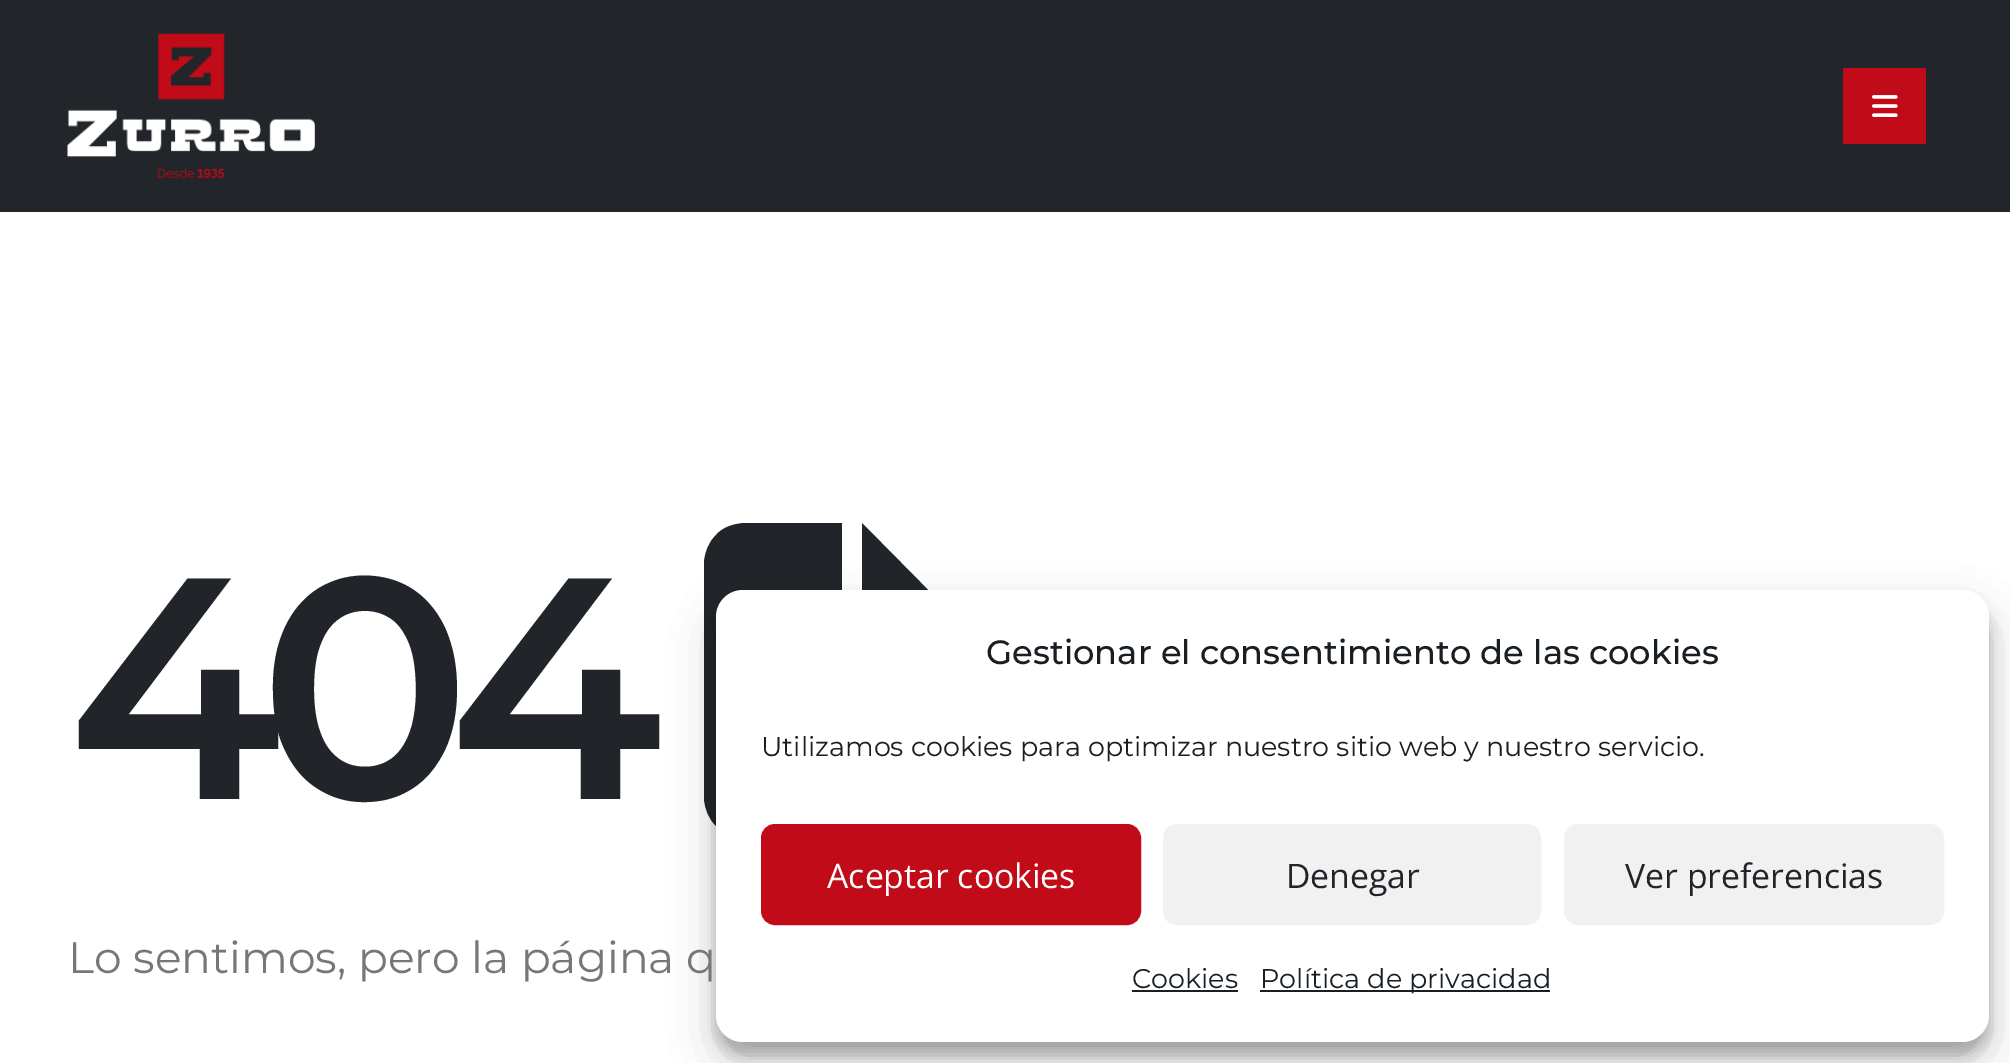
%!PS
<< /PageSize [2010 1063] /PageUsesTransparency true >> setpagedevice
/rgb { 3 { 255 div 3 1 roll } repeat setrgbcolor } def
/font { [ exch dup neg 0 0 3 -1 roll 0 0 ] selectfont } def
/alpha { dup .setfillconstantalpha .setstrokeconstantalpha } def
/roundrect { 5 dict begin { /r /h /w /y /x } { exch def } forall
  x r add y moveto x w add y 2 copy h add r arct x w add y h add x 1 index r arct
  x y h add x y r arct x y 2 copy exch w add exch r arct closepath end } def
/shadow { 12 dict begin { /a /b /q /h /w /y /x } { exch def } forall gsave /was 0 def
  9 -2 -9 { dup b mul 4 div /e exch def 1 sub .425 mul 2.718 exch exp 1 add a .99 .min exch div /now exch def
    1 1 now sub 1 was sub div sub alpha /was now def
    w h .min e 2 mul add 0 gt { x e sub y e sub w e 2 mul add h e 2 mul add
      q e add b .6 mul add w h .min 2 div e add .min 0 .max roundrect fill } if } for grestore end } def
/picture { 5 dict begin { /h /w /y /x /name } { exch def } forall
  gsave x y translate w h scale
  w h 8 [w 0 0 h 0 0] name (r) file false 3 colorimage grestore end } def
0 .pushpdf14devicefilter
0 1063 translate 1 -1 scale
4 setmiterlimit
255 255 255 rgb
0 0 2010 1063 rectfill
34 37 41 rgb
0 0 2010 212 rectfill
(img/1.rgb) 67 33 248 145 picture
194 11 25 rgb
1843 68 83 76 rectfill
(img/2.rgb) 1872 95 26 22 picture
33 37 41 rgb
704 562 moveto 705 551 709 542 716 535 curveto 723 527 733 524 744 523 curveto 842 523 lineto 842 606 lineto 845 623 861 622 875 622 curveto 940 622 lineto 940 799 lineto 940 810 936 819 929 826 curveto 921 834 912 838 901 838 curveto 744 838 lineto 733 838 723 834 716 826 curveto 709 819 705 810 704 799 curveto closepath 940 602 moveto 862 602 lineto 862 523 lineto closepath fill
0 0 0 rgb
716 603 1273 452 27 7 0.23 shadow
716 612 1273 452 27 22.5 0.19 shadow
255 255 255 rgb
716 590 1273 452 27 roundrect fill
194 11 25 rgb
762 825 378 99 13 roundrect gsave fill grestore
2 setlinewidth
stroke
241 241 241 rgb
1164 825 376 99 13 roundrect gsave fill grestore
stroke
1565 825 378 99 13 roundrect gsave fill grestore
stroke
25 30 35 rgb
1132 990 106 2 rectfill
1260 990 290 2 rectfill
/Montserrat-SemiBold 315 font
33 37 41 rgb
68 799 moveto -22.5 0 (404) ashow
/Montserrat-Regular 44.1 font
119 119 119 rgb
68 973 moveto (Lo sentimos, pero la página q) show
/Montserrat-Medium 33.75 font
25 30 35 rgb
986 664 moveto (Gestionar el consentimiento de las cookies) show
/Montserrat-Regular 27 font
761 756 moveto (Utilizamos cookies para optimizar nuestro sitio web y nuestro servicio.) show
/OpenSans-Regular 33.75 font
255 255 255 rgb
827 888 moveto (Aceptar cookies) show
33 37 41 rgb
1286 888 moveto (Denegar) show
1625 888 moveto (Ver preferencias) show
/Montserrat-Regular 27 font
25 30 35 rgb
1132 988 moveto (Cookies) show
1260 988 moveto (Política de privacidad) show
.poppdf14devicefilter showpage
